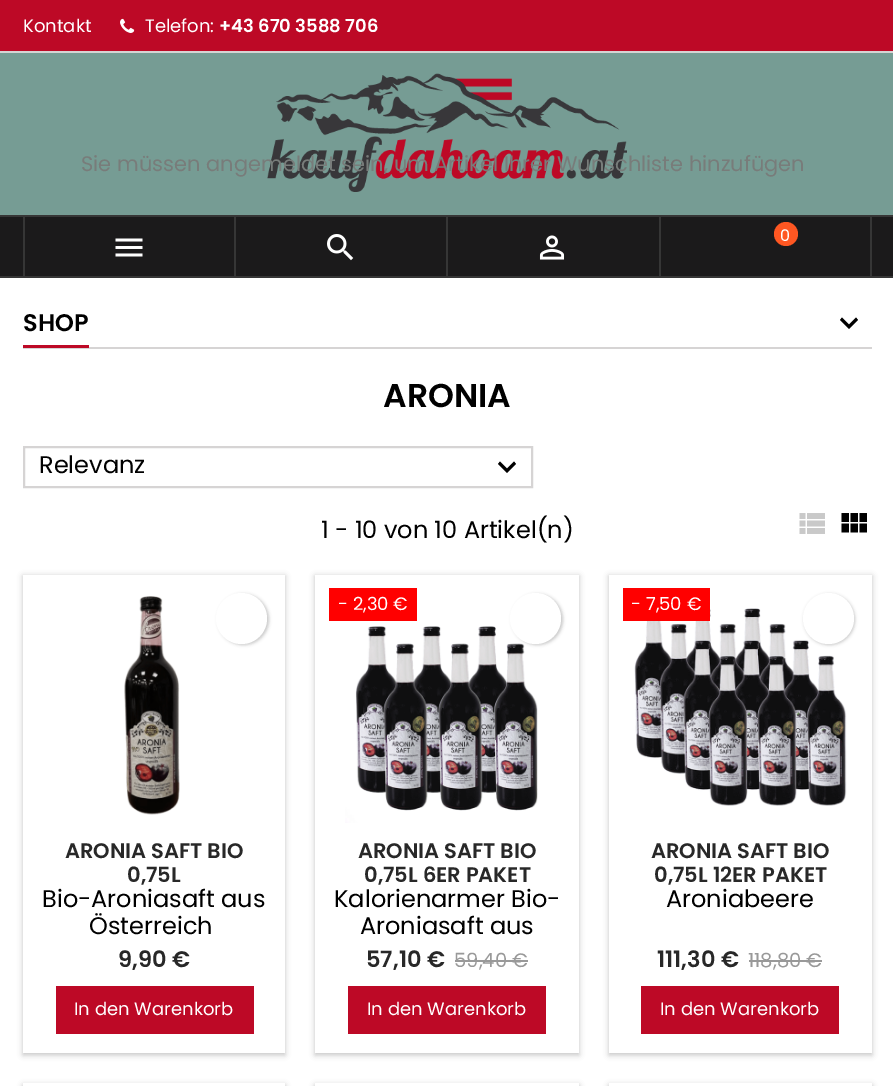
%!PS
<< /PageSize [893 1086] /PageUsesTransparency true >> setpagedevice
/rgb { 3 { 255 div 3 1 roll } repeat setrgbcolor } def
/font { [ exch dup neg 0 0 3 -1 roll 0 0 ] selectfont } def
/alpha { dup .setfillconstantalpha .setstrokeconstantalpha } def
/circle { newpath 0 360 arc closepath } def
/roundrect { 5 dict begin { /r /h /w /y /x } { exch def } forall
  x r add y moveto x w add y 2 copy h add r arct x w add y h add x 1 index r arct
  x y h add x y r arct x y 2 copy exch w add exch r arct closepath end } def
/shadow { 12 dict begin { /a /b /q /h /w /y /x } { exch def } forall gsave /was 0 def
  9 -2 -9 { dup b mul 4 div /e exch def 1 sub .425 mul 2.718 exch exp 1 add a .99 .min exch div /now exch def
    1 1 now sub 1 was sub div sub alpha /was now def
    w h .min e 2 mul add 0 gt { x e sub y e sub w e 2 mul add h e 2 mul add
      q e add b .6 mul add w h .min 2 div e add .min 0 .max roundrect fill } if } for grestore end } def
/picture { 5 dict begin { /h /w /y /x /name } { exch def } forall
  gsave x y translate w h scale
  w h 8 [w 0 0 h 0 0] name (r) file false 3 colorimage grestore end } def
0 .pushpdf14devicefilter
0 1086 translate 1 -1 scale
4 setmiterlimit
255 255 255 rgb
0 0 893 1086 rectfill
189 9 38 rgb
0 0 893 51 rectfill
214 212 212 rgb
0 51 893 2 rectfill
(img/1.rgb) 120 18 15 15 picture
118 156 148 rgb
0 53 893 162 rectfill
(img/2.rgb) 267 73 360 119 picture
[
  [0 217 893 59 27 26 27]
  [0 215 893 2 54 54 54]
  [0 276 893 2 54 54 54]
  [234 216 2 60 54 54 54]
  [23 216 2 60 54 54 54]
] { aload pop rgb rectfill } forall
(img/3.rgb) 115 238 28 19 picture
446 216 2 60 rectfill
(img/4.rgb) 327 234 27 27 picture
659 216 2 60 rectfill
(img/5.rgb) 539 235 26 25 picture
870 216 2 60 rectfill
255 87 34 rgb
786 234 12 circle fill
214 212 212 rgb
23 347 849 2 rectfill
189 9 38 rgb
23 345 66 3 rectfill
0 0 0 rgb
842 317.5 moveto 849 324.5 lineto 856 317.5 lineto 858 320 lineto 849 329 lineto 840 320 lineto closepath fill
214 212 212 rgb
2 setlinewidth
24 447 508 40 rectstroke
0 0 0 rgb
500 461.5 moveto 507 468.5 lineto 514 461.5 lineto 516 464 lineto 507 473 lineto 498 464 lineto closepath fill
(img/6.rgb) 799 513 26 21 picture
(img/7.rgb) 841 513 26 20 picture
gsave
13 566 moveto 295 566 lineto 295 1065 lineto 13 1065 lineto closepath 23 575 moveto 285 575 lineto 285 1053 lineto 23 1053 lineto closepath eoclip newpath
23 576 262 479 0 3 0.24 shadow
grestore
(img/8.rgb) 124 596 56 219 picture
218 594 51 51 25.5 1.5 0.2 shadow
255 255 255 rgb
241.5 618.5 25.5 circle fill
189 9 38 rgb
56 986 198 48 rectfill
gsave
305 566 moveto 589 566 lineto 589 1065 lineto 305 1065 lineto closepath 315 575 moveto 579 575 lineto 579 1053 lineto 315 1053 lineto closepath eoclip newpath
0 0 0 rgb
315 576 264 479 0 3 0.24 shadow
grestore
255 0 0 rgb
329 588 88 33 rectfill
(img/9.rgb) 345 626 193 197 picture
0 0 0 rgb
512 594 51 51 25.5 1.5 0.2 shadow
255 255 255 rgb
535.5 618.5 25.5 circle fill
153 153 153 rgb
455 960 73 2 rectfill
189 9 38 rgb
348 986 198 48 rectfill
0 0 0 rgb
609 576 263 479 0 3 0.24 shadow
255 255 255 rgb
609 575 263 478 rectfill
(img/10.rgb) 634 608 213 198 picture
255 0 0 rgb
623 588 87 33 rectfill
0 0 0 rgb
804 594 51 51 25.5 1.5 0.2 shadow
255 255 255 rgb
828.5 618.5 25.5 circle fill
153 153 153 rgb
749 960 73 2 rectfill
189 9 38 rgb
641 986 198 48 rectfill
gsave
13 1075 moveto 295 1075 lineto 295 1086 lineto 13 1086 lineto closepath 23 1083 moveto 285 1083 lineto 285 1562 lineto 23 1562 lineto closepath eoclip newpath
0 0 0 rgb
23 1085 262 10 0 3 0.24 shadow
grestore
gsave
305 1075 moveto 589 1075 lineto 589 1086 lineto 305 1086 lineto closepath 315 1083 moveto 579 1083 lineto 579 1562 lineto 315 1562 lineto closepath eoclip newpath
0 0 0 rgb
315 1085 264 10 0 3 0.24 shadow
grestore
0 0 0 rgb
609 1085 263 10 0 3 0.24 shadow
255 255 255 rgb
609 1083 263 3 rectfill
/Poppins-Regular 18 font
23 32 moveto (Kontakt) show
145 32 moveto (Telefon:) show
/Poppins-SemiBold 18 font
219 32 moveto (+43 670 3588 706) show
/Poppins-Regular 16 font
780 241 moveto (0) show
/Poppins-Regular 21 font
120 124 122 rgb
81 171 moveto (Sie müssen angemeldet sein, um Artikel Ihrer Wunschliste hinzufügen) show
/Poppins-SemiBold 24 font
0 0 0 rgb
23 331 moveto (SHOP) show
/Poppins-SemiBold 33 font
383 407 moveto (ARONIA) show
/Poppins-Regular 24 font
39 473 moveto (Relevanz) show
321 538 moveto (1 - 10 von 10 Artikel\(n\)) show
/Poppins-SemiBold 21 font
40 40 40 rgb
65 858 moveto (ARONIA SAFT BIO) show
127 882 moveto (0,75L) show
/Poppins-Regular 24 font
0 0 0 rgb
42 907 moveto (Bio-Aroniasaft aus) show
89 934 moveto (Österreich) show
/Poppins-SemiBold 22.5 font
40 40 40 rgb
118 967 moveto (9,90 €) show
/Poppins-Regular 18 font
255 255 255 rgb
74 1015 moveto (In den Warenkorb) show
338 610 moveto (- 2,30 €) show
/Poppins-SemiBold 21 font
40 40 40 rgb
358 858 moveto (ARONIA SAFT BIO) show
364 882 moveto (0,75L 6ER PAKET) show
/Poppins-Regular 24 font
0 0 0 rgb
334 907 moveto (Kalorienarmer Bio-) show
360 934 moveto (Aroniasaft aus) show
/Poppins-SemiBold 22.5 font
40 40 40 rgb
366 967 moveto (57,10 €) show
/Poppins-Regular 19.5 font
153 153 153 rgb
454 967 moveto (59,40 €) show
/Poppins-Regular 18 font
255 255 255 rgb
367 1015 moveto (In den Warenkorb) show
631 610 moveto (- 7,50 €) show
/Poppins-SemiBold 21 font
40 40 40 rgb
651 858 moveto (ARONIA SAFT BIO) show
654 882 moveto (0,75L 12ER PAKET) show
/Poppins-Regular 24 font
0 0 0 rgb
666 907 moveto (Aroniabeere) show
/Poppins-SemiBold 22.5 font
40 40 40 rgb
657 967 moveto (111,30 €) show
/Poppins-Regular 19.5 font
153 153 153 rgb
748 967 moveto (118,80 €) show
/Poppins-Regular 18 font
255 255 255 rgb
660 1015 moveto (In den Warenkorb) show
.poppdf14devicefilter showpage
